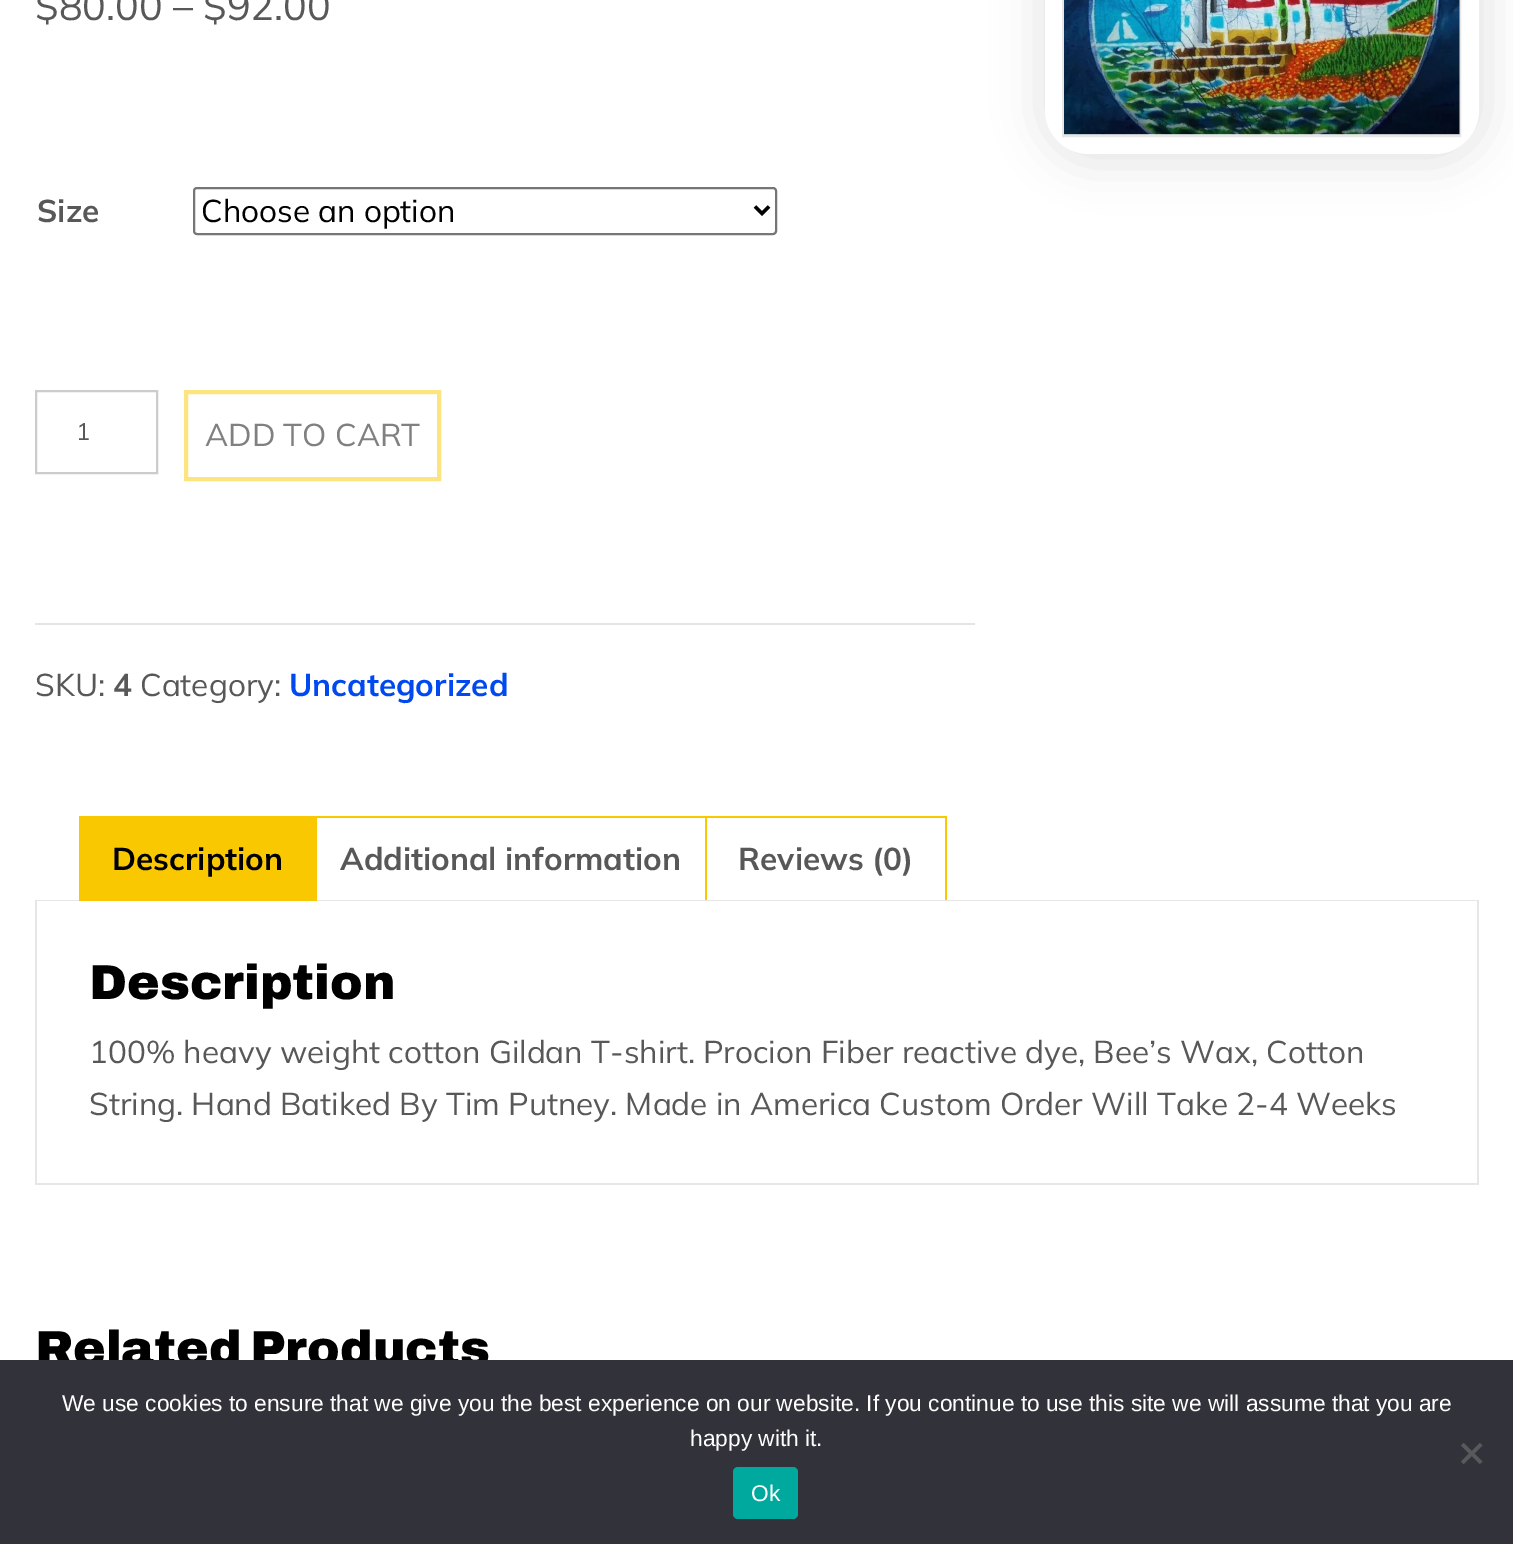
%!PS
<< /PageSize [1513 1544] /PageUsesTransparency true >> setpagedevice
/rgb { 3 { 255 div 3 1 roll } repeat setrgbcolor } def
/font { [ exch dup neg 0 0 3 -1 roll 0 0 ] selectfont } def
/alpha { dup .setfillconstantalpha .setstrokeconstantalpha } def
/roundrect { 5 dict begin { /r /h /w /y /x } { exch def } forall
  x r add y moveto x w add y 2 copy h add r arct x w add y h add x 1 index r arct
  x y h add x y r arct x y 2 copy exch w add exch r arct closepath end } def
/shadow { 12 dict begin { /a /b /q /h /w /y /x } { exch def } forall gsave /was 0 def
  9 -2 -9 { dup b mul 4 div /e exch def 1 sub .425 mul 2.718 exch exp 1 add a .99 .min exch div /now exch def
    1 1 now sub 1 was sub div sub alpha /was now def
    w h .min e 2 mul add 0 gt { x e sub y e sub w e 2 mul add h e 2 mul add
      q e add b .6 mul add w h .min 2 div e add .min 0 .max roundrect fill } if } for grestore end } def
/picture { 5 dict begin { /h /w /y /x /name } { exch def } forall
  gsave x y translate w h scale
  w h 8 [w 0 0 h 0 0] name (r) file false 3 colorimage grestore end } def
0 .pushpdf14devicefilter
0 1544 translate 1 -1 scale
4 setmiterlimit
255 255 255 rgb
0 0 1513 1544 rectfill
118 118 118 rgb
2 setlinewidth
194 188 582 46 3 roundrect stroke
0 0 0 rgb
3.5 setlinewidth
755 206.5 moveto 762 213.5 lineto 769 206.5 lineto stroke
204 204 204 rgb
2 setlinewidth
36 391 121 82 rectstroke
252 228 128 rgb
4 setlinewidth
186 392 253 87 rectstroke
229 229 229 rgb
35 623 940 2 rectfill
0 0 0 rgb
1038 -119 451 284 53 22 0.1 shadow
255 255 255 rgb
1045 -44 434 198 44 roundrect fill
230 230 230 rgb
2 setlinewidth
1063 -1 397 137 rectstroke
(img/1.rgb) 1064 0 396 135 picture
[
  [317 816 630 2 249 200 0]
  [945 816 2 85 249 200 0]
  [705 816 2 85 249 200 0]
  [35 900 1444 1 230 230 230]
  [79 816 238 85 249 200 0]
  [1477 901 2 284 230 230 230]
  [35 1183 1444 2 230 230 230]
  [35 901 2 284 230 230 230]
] { aload pop rgb rectfill } forall
/Mulish-Regular 39.5 font
88 88 88 rgb
35 20 moveto ($80.00 – $92.00) show
/Mulish-Bold 31.5 font
37 222 moveto (Size) show
/Mulish-Regular 31.5 font
0 0 0 rgb
201 222 moveto (Choose an option) show
/Mulish-Regular 24 font
88 88 88 rgb
76 440 moveto (1) show
/Mulish-Regular 31.5 font
128 128 128 rgb
205 446 moveto (ADD TO CART) show
88 88 88 rgb
35 696 moveto (SKU:) show
/Mulish-Bold 31.5 font
113 696 moveto (4) show
/Mulish-Regular 31.5 font
140 696 moveto (Category:) show
/Mulish-Bold 31.5 font
0 73 240 rgb
289 696 moveto (Uncategorized) show
0 0 0 rgb
112 870 moveto (Description) show
88 88 88 rgb
340 870 moveto (Additional information) show
738 870 moveto (Reviews \(0\)) show
/Archivo-Black 49 font
0 0 0 rgb
89 999 moveto (Description) show
/Mulish-Regular 31.5 font
88 88 88 rgb
89 1063 moveto (100% heavy weight cotton Gildan T-shirt. Procion Fiber reactive dye, Bee’s Wax, Cotton) show
89 1115 moveto (String. Hand Batiked By Tim Putney. Made in America Custom Order Will Take 2-4 Weeks) show
/Archivo-Black 49 font
0 0 0 rgb
35 1365 moveto (Related Products) show
50 50 58 rgb
0 1360 1513 184 rectfill
/LiberationSans-Regular 22.75 font
255 255 255 rgb
62 1411 moveto (We use cookies to ensure that we give you the best experience on our website. If you continue to use this site we will assume that you are) show
690 1446 moveto (happy with it.) show
89 89 93 rgb
1480 1443 moveto 1482.5 1445.5 lineto 1463.5 1464 lineto 1461 1461.5 lineto closepath fill
1461 1445.5 moveto 1463.5 1443 lineto 1482.5 1461.5 lineto 1480 1464 lineto closepath fill
0 169 157 rgb
733 1467 65 52 5 roundrect fill
255 255 255 rgb
751 1501 moveto (Ok) show
.poppdf14devicefilter showpage
